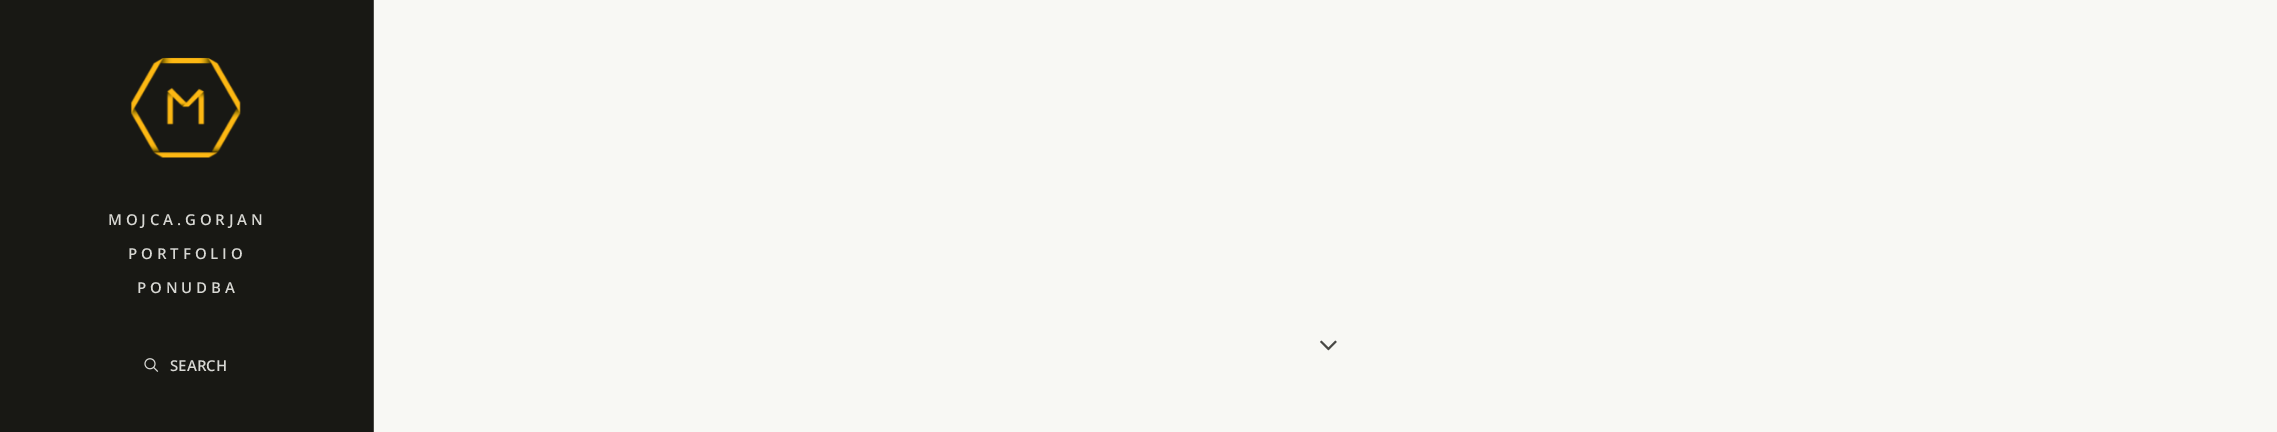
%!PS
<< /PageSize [2277 432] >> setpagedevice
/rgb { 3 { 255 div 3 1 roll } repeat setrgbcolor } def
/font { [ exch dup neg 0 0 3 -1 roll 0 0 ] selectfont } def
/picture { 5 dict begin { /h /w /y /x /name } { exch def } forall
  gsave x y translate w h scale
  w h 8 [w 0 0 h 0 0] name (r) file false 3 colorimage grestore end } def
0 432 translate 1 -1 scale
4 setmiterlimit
248 248 244 rgb
0 0 2277 432 rectfill
24 24 20 rgb
0 0 373 432 rectfill
72 72 68 rgb
373 0 1 432 rectfill
(img/1.rgb) 130 57 111 101 picture
(img/2.rgb) 144 358 15 14 picture
(img/3.rgb) 1320 340 17 11 picture
/OpenSans-SemiBold 15 font
216 216 212 rgb
[
  [(M O J C A . G O R J A N) 108 225]
  [(P O R T F O L I O) 128 259]
  [(P O N U D B A) 137 293]
  [(SEARCH) 170 371]
] { aload pop moveto show } forall
showpage
